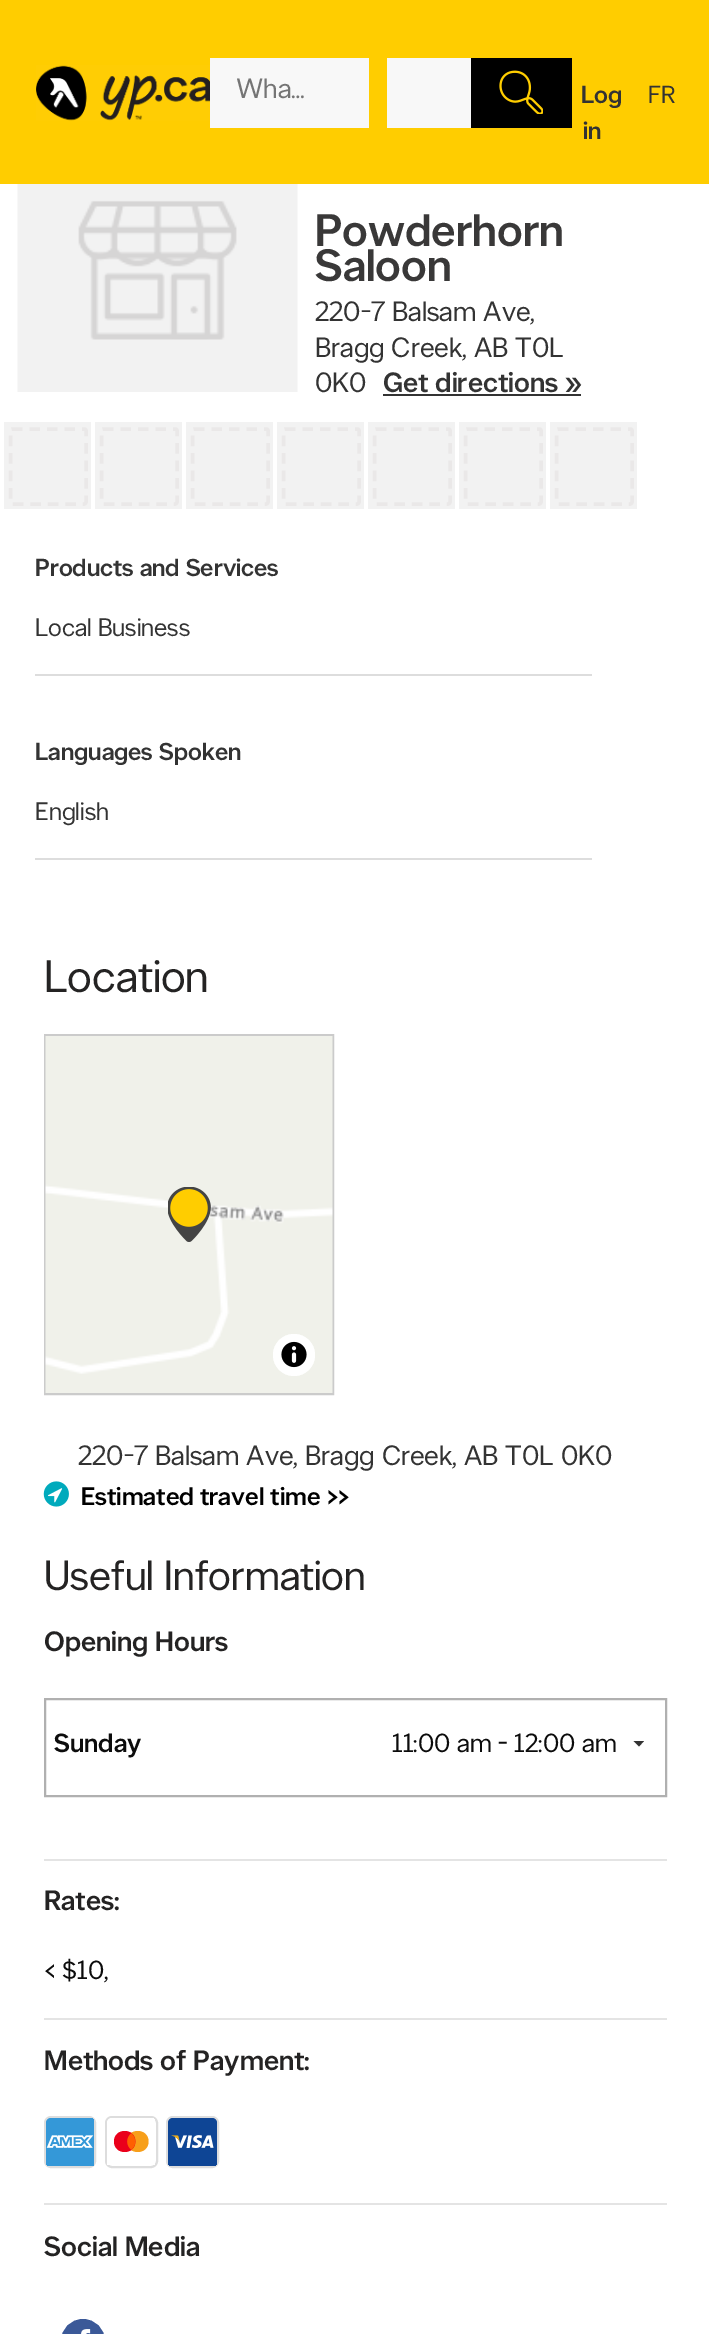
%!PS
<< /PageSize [709 2334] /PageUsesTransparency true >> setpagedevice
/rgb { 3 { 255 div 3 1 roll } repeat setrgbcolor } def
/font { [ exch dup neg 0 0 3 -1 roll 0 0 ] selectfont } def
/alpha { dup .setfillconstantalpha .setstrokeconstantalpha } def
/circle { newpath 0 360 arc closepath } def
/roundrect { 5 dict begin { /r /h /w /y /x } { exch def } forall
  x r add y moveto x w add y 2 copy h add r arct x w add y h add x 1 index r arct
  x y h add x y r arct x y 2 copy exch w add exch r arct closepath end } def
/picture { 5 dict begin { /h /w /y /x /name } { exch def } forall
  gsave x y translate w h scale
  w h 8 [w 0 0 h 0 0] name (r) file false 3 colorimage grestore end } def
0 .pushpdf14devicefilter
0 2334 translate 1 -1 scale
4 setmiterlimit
255 255 255 rgb
0 0 709 2334 rectfill
255 205 0 rgb
0 0 709 184 rectfill
(img/1.rgb) 36 65 174 56 picture
[
  [210 58 159 70 248 248 248]
  [387 58 84 70 248 248 248]
  [471 58 101 70 0 0 0]
] { aload pop rgb rectfill } forall
(img/2.rgb) 499 70 44 44 picture
(img/3.rgb) 17 184 281 208 picture
51 51 51 rgb
383 394 198 2 rectfill
242 242 242 rgb
4 422 87 87 rectfill
234 232 232 rgb
3.5 setlinewidth
[10.5 7] 0 setdash
12 429 moveto 84 429 lineto 85 429 86 429.5 86 430.5 curveto 86 502 lineto 86 503 85 504 84 504 curveto 12 504 lineto 11.5 504 10.5 503 10.5 502 curveto 10.5 430.5 lineto 10.5 429.5 11.5 429 12 429 curveto closepath stroke
242 242 242 rgb
95 422 87 87 rectfill
234 232 232 rgb
103 429 moveto 175 429 lineto 176 429 177 429.5 177 430.5 curveto 177 502 lineto 177 503 176 504 175 504 curveto 103 504 lineto 102.5 504 101.5 503 101.5 502 curveto 101.5 430.5 lineto 101.5 429.5 102.5 429 103 429 curveto closepath stroke
242 242 242 rgb
186 422 87 87 rectfill
234 232 232 rgb
194 429 moveto 266 429 lineto 267 429 268 429.5 268 430.5 curveto 268 502 lineto 268 503 267 504 266 504 curveto 194 504 lineto 193.5 504 192.5 503 192.5 502 curveto 192.5 430.5 lineto 192.5 429.5 193.5 429 194 429 curveto closepath stroke
242 242 242 rgb
277 422 87 87 rectfill
234 232 232 rgb
285 429 moveto 357 429 lineto 358 429 359 429.5 359 430.5 curveto 359 502 lineto 359 503 358 504 357 504 curveto 285 504 lineto 284.5 504 283.5 503 283.5 502 curveto 283.5 430.5 lineto 283.5 429.5 284.5 429 285 429 curveto closepath stroke
242 242 242 rgb
368 422 87 87 rectfill
234 232 232 rgb
376 429 moveto 448 429 lineto 449 429 450 429.5 450 430.5 curveto 450 502 lineto 450 503 449 504 448 504 curveto 376 504 lineto 375.5 504 374.5 503 374.5 502 curveto 374.5 430.5 lineto 374.5 429.5 375.5 429 376 429 curveto closepath stroke
242 242 242 rgb
459 422 87 87 rectfill
234 232 232 rgb
467 429 moveto 539 429 lineto 540 429 541 429.5 541 430.5 curveto 541 502 lineto 541 503 540 504 539 504 curveto 467 504 lineto 466.5 504 465.5 503 465.5 502 curveto 465.5 430.5 lineto 465.5 429.5 466.5 429 467 429 curveto closepath stroke
242 242 242 rgb
550 422 87 87 rectfill
234 232 232 rgb
558 429 moveto 630 429 lineto 631 429 632 429.5 632 430.5 curveto 632 502 lineto 632 503 631 504 630 504 curveto 558 504 lineto 557.5 504 556.5 503 556.5 502 curveto 556.5 430.5 lineto 556.5 429.5 557.5 429 558 429 curveto closepath stroke
221 221 221 rgb
35 674 557 2 rectfill
35 858 557 2 rectfill
203 203 203 rgb
2 setlinewidth
[] 0 setdash
45 1035 288 359 rectstroke
(img/4.rgb) 45 1036 288 357 picture
(img/5.rgb) 168 1187 43 55 picture
255 255 255 rgb
294 1355 21 circle fill
0.5 alpha
294 1355 21 circle fill
1 alpha
(img/6.rgb) 281 1341 26 27 picture
(img/7.rgb) 43 1481 26 26 picture
228 228 228 rgb
44 1859 623 2 rectfill
176 176 176 rgb
45 1699 621 97 rectstroke
51 51 51 rgb
633.5 1741 moveto 644 1741 lineto 639 1746.5 lineto closepath fill
228 228 228 rgb
44 2018 623 2 rectfill
44 2203 623 2 rectfill
221 221 221 rgb
45 2117 50 50 6 roundrect stroke
gsave
46 2118 49 49 5 roundrect clip newpath
52 152 216 rgb
51 2118 moveto 94 2118 lineto 94 2166 lineto 46 2166 lineto 46 2123 lineto 46 2120 48 2118 51 2118 curveto closepath fill
grestore
(img/8.rgb) 46 2135 48 13 picture
106 2117 51 50 6 roundrect stroke
gsave
107 2118 49 49 5 roundrect clip newpath
255 255 255 rgb
112 2118 moveto 155 2118 lineto 155 2165 lineto 107 2165 lineto 107 2123 lineto 107 2120 109 2118 112 2118 curveto closepath fill
grestore
247 159 26 rgb
148.5 2141.5 moveto 148.5 2155.5 127 2155.5 127 2141.5 curveto 127 2127.5 148.5 2127.5 148.5 2141.5 curveto closepath fill
234 0 27 rgb
135.5 2141.5 moveto 135.5 2155.5 114 2155.5 114 2141.5 curveto 114 2127.5 135.5 2127.5 135.5 2141.5 curveto closepath fill
(img/9.rgb) 127 2133 9 17 picture
221 221 221 rgb
167 2117 51 50 6 roundrect stroke
gsave
168 2118 49 49 5 roundrect clip newpath
14 69 149 rgb
173 2118 moveto 212 2118 lineto 215 2118 217 2120 217 2123 curveto 217 2166 lineto 168 2166 lineto 168 2123 lineto 168 2120 170 2118 173 2118 curveto closepath fill
grestore
255 255 255 rgb
186.5 2148 moveto 188.5 2135.5 lineto 192 2135.5 lineto 189.5 2148 lineto closepath fill
(img/11.rgb) 175 2135 12 13 picture
(img/10.rgb) 171 2135 9 7 picture
(img/12.rgb) 191 2135 11 13 picture
(img/13.rgb) 201 2135 13 13 picture
59 89 152 rgb
62 2320 42 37 21 roundrect gsave fill grestore
stroke
(img/14.rgb) 81 2329 10 5 picture
/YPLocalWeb-Regular 28 font
117 117 117 rgb
236 98 moveto (Wha…) show
/YPLocalWeb-Medium 24.5 font
51 51 51 rgb
581 103 moveto (Log) show
583 139 moveto (in) show
/YPLocalWeb-Regular 24.5 font
648 103 moveto (FR) show
/YPLocalWeb-Medium 45.5 font
57 56 56 rgb
315 246 moveto (Powderhorn) show
315 281 moveto (Saloon) show
/YPLocalWeb-Regular 28 font
51 51 51 rgb
[
  [(220-7 Balsam Ave,) 315 321]
  [(Bragg Creek, AB T0L) 315 357]
  [(0K0) 315 392]
] { aload pop moveto show } forall
/YPLocalWeb-Medium 28 font
383 392 moveto (Get directions ») show
/YPLocalWeb-Medium 24.5 font
35 576 moveto (Products and Services) show
/YPLocalWeb-Regular 25.25 font
35 636 moveto (Local Business) show
/YPLocalWeb-Medium 24.5 font
35 760 moveto (Languages Spoken) show
/YPLocalWeb-Regular 25.25 font
35 820 moveto (English) show
/YPLocalWeb-Regular 45.5 font
36 35 35 rgb
44 992 moveto (Location) show
/YPLocalWeb-Regular 28 font
51 51 51 rgb
78 1465 moveto (220-7 Balsam Ave, Bragg Creek, AB T0L 0K0) show
/YPLocalWeb-Medium 25.25 font
0 0 0 rgb
81 1505 moveto (Estimated travel time >>) show
/YPLocalWeb-Regular 42 font
36 35 35 rgb
44 1590 moveto (Useful Information) show
/YPLocalWeb-Medium 28 font
44 1651 moveto (Opening Hours) show
/YPLocalWeb-Medium 26.25 font
12 12 12 rgb
54 1752 moveto (Sunday) show
/YPLocalWeb-Regular 26.25 font
392 1752 moveto (11:00 am - 12:00 am) show
/YPLocalWeb-Medium 28 font
36 35 35 rgb
44 1910 moveto (Rates:) show
/YPLocalWeb-Regular 26.25 font
12 12 12 rgb
44 1979 moveto (< $10,) show
/YPLocalWeb-Medium 28 font
36 35 35 rgb
44 2070 moveto (Methods of Payment:) show
44 2256 moveto (Social Media) show
.poppdf14devicefilter showpage
